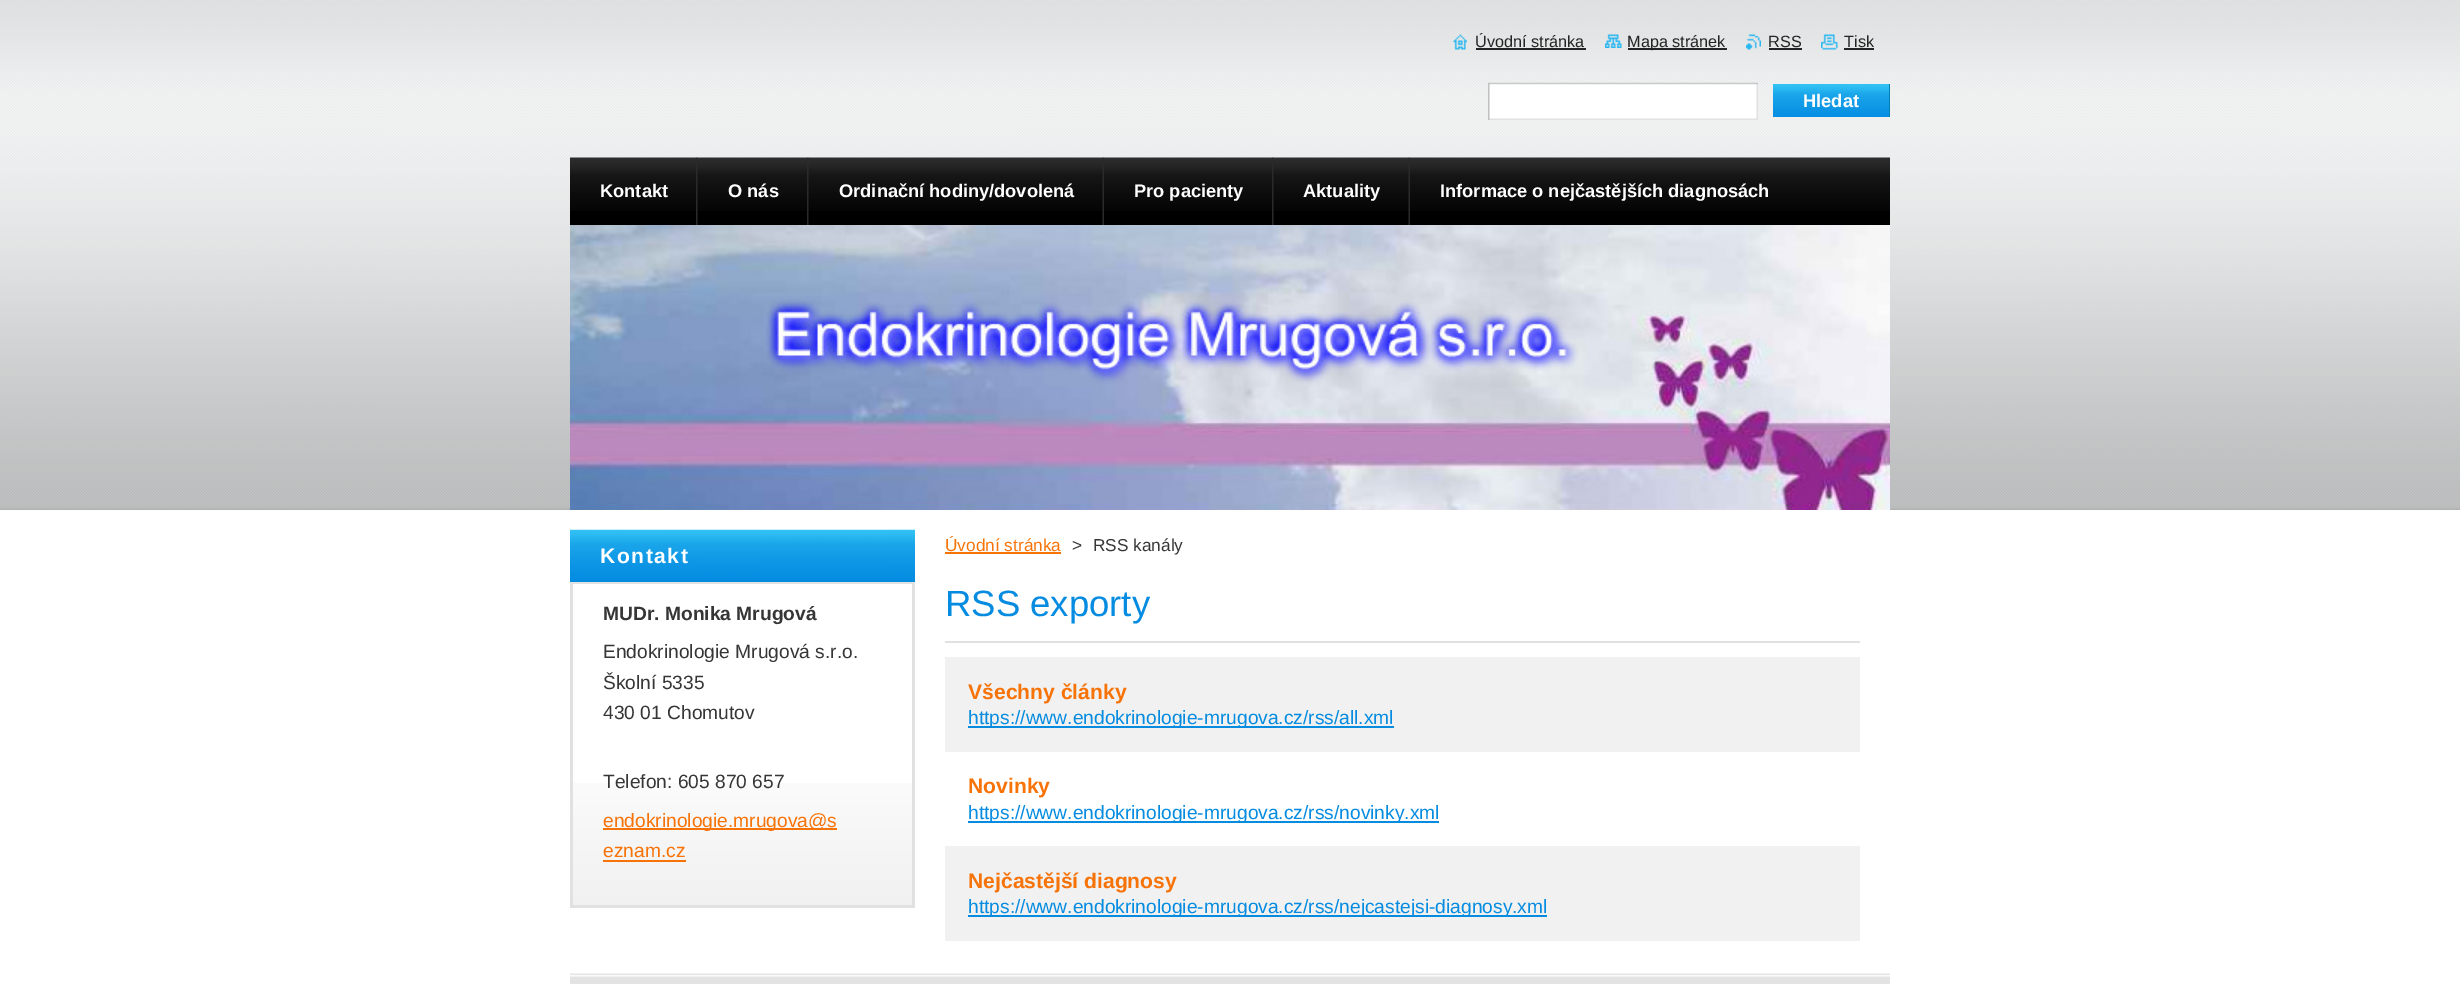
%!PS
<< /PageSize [2460 984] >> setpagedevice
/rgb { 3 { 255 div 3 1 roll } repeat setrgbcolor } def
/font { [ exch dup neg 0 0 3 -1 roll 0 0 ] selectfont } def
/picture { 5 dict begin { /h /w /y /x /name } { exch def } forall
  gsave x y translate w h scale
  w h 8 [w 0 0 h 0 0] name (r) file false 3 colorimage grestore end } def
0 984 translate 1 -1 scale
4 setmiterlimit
255 255 255 rgb
0 0 2460 984 rectfill
(img/1.rgb) 0 0 2460 510 picture
(img/2.rgb) 1453 34 14 16 picture
36 36 36 rgb
1476 48 110 2 rectfill
(img/3.rgb) 1605 34 17 14 picture
1628 48 99 2 rectfill
(img/4.rgb) 1746 34 15 16 picture
1769 48 33 2 rectfill
(img/5.rgb) 1821 34 17 16 picture
1844 48 30 2 rectfill
(img/6.rgb) 1488 82 270 38 picture
(img/7.rgb) 1773 84 116 33 picture
0 127 178 rgb
1889 84 1 33 rectfill
0 0 0 rgb
570 211 1320 14 rectfill
(img/8.rgb) 570 157 1320 54 picture
(img/9.rgb) 696 157 2 68 picture
(img/9.rgb) 807 157 2 68 picture
(img/10.rgb) 1102 157 2 68 picture
(img/9.rgb) 1272 157 2 68 picture
(img/10.rgb) 1408 157 2 68 picture
(img/11.rgb) 570 225 1320 285 picture
(img/12.rgb) 573 783 339 122 picture
(img/13.rgb) 570 529 345 53 picture
[
  [570 582 345 2 225 225 225]
  [912 584 3 324 225 225 225]
  [570 905 345 3 225 225 225]
  [570 584 3 324 225 225 225]
  [603 828 234 2 248 115 7]
  [603 860 83 2 248 115 7]
  [945 552 116 2 248 115 7]
  [945 641 915 2 225 225 225]
  [945 657 915 95 241 241 241]
  [968 726 426 2 5 140 225]
  [968 821 471 2 5 140 225]
  [945 846 915 95 241 241 241]
  [968 915 579 2 5 140 225]
  [570 977 1320 7 227 227 227]
] { aload pop rgb rectfill } forall
(img/14.rgb) 570 973 1320 4 picture
/LiberationSans-Regular 16.25 font
36 36 36 rgb
[
  [(Úvodní stránka) 1475 47]
  [(Mapa stránek) 1627 47]
  [(RSS) 1768 47]
  [(Tisk) 1844 47]
] { aload pop moveto show } forall
/LiberationSans-Bold 18.25 font
255 255 255 rgb
[
  [(Hledat) 1803 107]
  [(Kontakt) 600 197]
  [(O nás) 728 197]
  [(Ordinační hodiny/dovolená) 839 197]
  [(Pro pacienty) 1134 197]
  [(Aktuality) 1303 197]
  [(Informace o nejčastějších diagnosách) 1440 197]
] { aload pop moveto show } forall
/LiberationSans-Bold 21.1 font
600 563 moveto 1.5 0 (Kontakt) ashow
/LiberationSans-Bold 19.2 font
54 54 54 rgb
603 620 moveto (MUDr. Monika Mrugová) show
/LiberationSans-Regular 19.2 font
[
  [(Endokrinologie Mrugová s.r.o.) 603 658]
  [(Školní 5335) 603 689]
  [(430 01 Chomutov) 603 719]
  [(Telefon: 605 870 657) 603 788]
] { aload pop moveto show } forall
248 115 7 rgb
603 827 moveto (endokrinologie.mrugova@s) show
603 857 moveto (eznam.cz) show
/LiberationSans-Regular 17.25 font
945 551 moveto (Úvodní stránka) show
54 54 54 rgb
1072 551 moveto (>) show
1093 551 moveto (RSS kanály) show
/LiberationSans-Regular 36.5 font
5 140 225 rgb
945 616 moveto (RSS exporty) show
/LiberationSans-Bold 21.1 font
248 115 7 rgb
968 699 moveto (Všechny články) show
/LiberationSans-Regular 19.2 font
5 140 225 rgb
968 724 moveto (https://www.endokrinologie-mrugova.cz/rss/all.xml) show
/LiberationSans-Bold 21.1 font
248 115 7 rgb
968 793 moveto (Novinky) show
/LiberationSans-Regular 19.2 font
5 140 225 rgb
968 819 moveto (https://www.endokrinologie-mrugova.cz/rss/novinky.xml) show
/LiberationSans-Bold 21.1 font
248 115 7 rgb
968 888 moveto (Nejčastější diagnosy) show
/LiberationSans-Regular 19.2 font
5 140 225 rgb
968 913 moveto (https://www.endokrinologie-mrugova.cz/rss/nejcastejsi-diagnosy.xml) show
showpage
